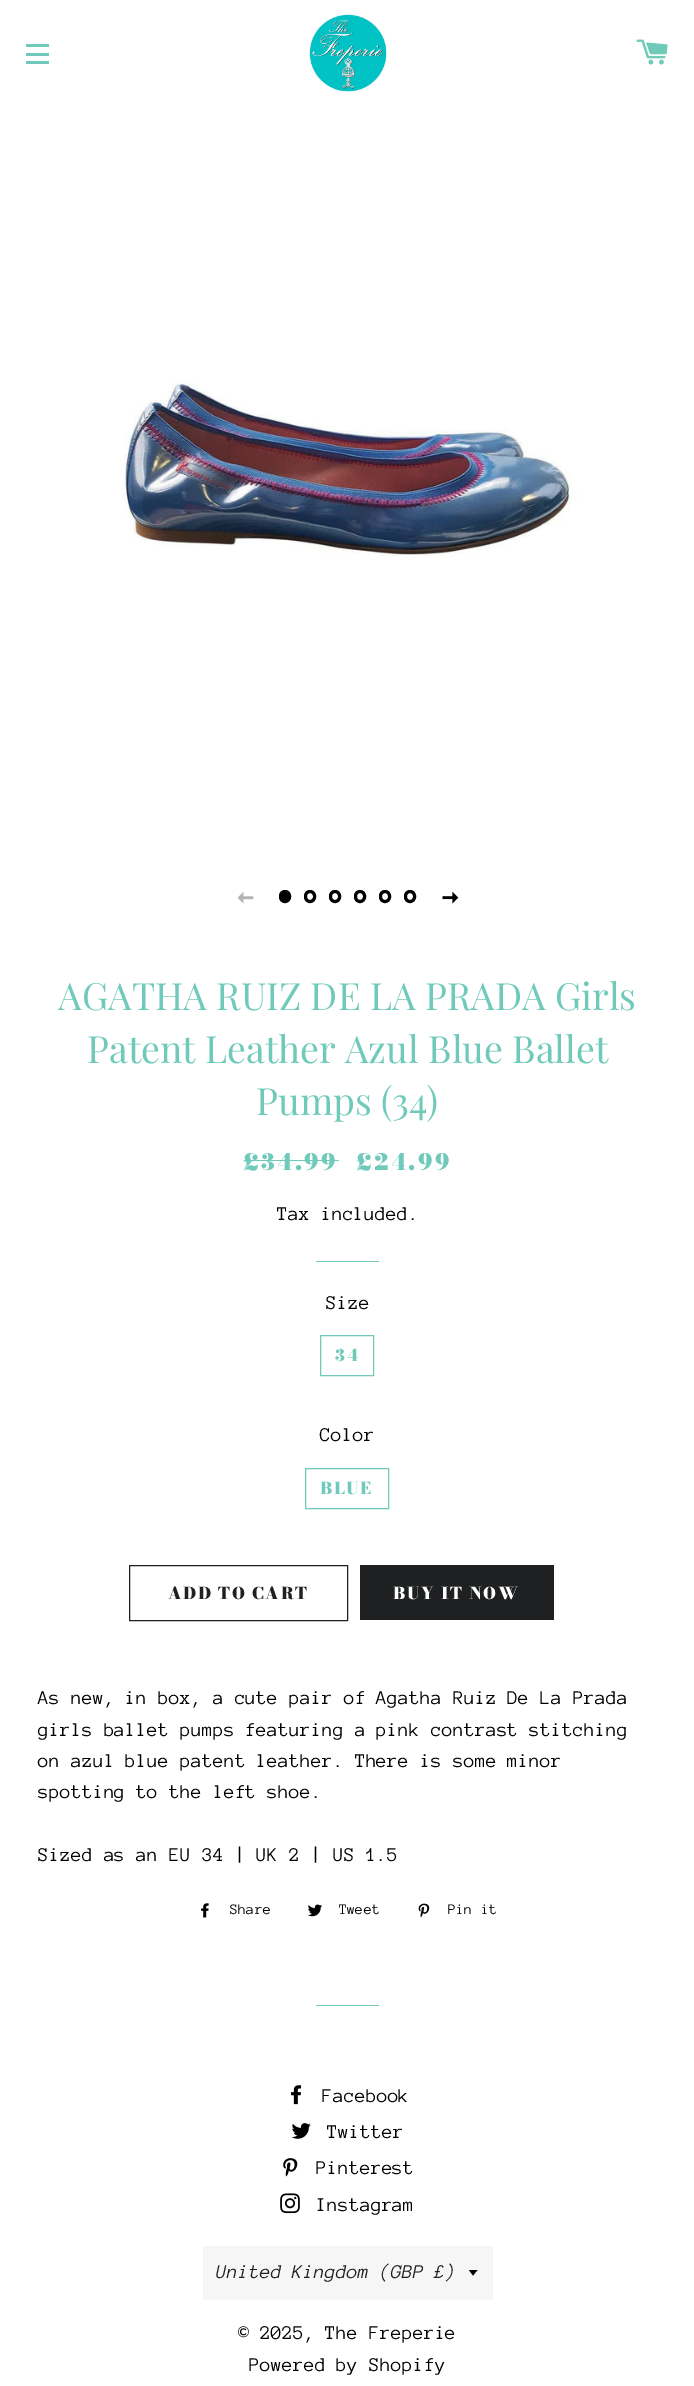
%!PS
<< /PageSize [694 2386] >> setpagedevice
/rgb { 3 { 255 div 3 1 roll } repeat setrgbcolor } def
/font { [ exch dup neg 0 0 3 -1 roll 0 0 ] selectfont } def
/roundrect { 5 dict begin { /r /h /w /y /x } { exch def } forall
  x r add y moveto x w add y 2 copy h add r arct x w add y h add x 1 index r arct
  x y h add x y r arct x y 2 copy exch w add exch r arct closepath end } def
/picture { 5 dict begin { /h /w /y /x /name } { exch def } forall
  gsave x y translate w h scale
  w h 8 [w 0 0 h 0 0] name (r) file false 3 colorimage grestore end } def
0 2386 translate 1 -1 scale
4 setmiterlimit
255 255 255 rgb
0 0 694 2386 rectfill
[
  [26 44 23 3 111 202 186]
  [26 53 23 3 111 202 186]
  [26 61 23 3 111 202 186]
] { aload pop rgb rectfill } forall
(img/1.rgb) 308 13 79 79 picture
(img/2.rgb) 636 39 32 26 picture
(img/3.rgb) 101 100 493 738 picture
(img/4.rgb) 237 892 17 12 picture
0 0 0 rgb
280.5 891.5 9 10 4.5 roundrect gsave fill grestore
3 setlinewidth
stroke
305.5 891.5 9 10 4.5 roundrect stroke
330.5 891.5 9 10 4.5 roundrect stroke
355.5 891.5 9 10 4.5 roundrect stroke
380.5 891.5 9 10 4.5 roundrect stroke
405.5 891.5 9 10 4.5 roundrect stroke
(img/5.rgb) 442 891 17 13 picture
111 202 186 rgb
244 1160 95 1 rectfill
316 1261 63 1 rectfill
1 setlinewidth
320.5 1335.5 53 40 rectstroke
305.5 1468.5 83 40 rectstroke
31 32 33 rgb
129.5 1565.5 218 55 rectstroke
360 1565 194 55 rectfill
(img/6.rgb) 201 1903 8 15 picture
(img/7.rgb) 308 1904 14 13 picture
(img/8.rgb) 418 1903 12 15 picture
111 202 186 rgb
316 2005 63 1 rectfill
(img/9.rgb) 291 2085 11 20 picture
(img/10.rgb) 291 2123 20 16 picture
(img/11.rgb) 283 2158 15 19 picture
(img/12.rgb) 280 2193 20 21 picture
246 246 246 rgb
203 2246 290 54 rectfill
0 0 0 rgb
469 2270 moveto 473 2275.5 lineto 477.5 2270 lineto closepath fill
/PlayfairDisplay-Regular 37.5 font
111 202 186 rgb
[
  [(AGATHA RUIZ DE LA PRADA Girls) 58 1010]
  [(Patent Leather Azul Blue Ballet) 87 1063]
  [(Pumps \(34\)) 256 1115]
] { aload pop moveto show } forall
/BodoniModa-Black 22.5 font
243 1170 moveto 2.25 0 (£34.99) ashow
356 1170 moveto 2.25 0 (£24.99) ashow
/AnonymousPro-Regular 20 font
0 0 0 rgb
277 1220 moveto (Tax included.) show
326 1309 moveto (Size) show
/BodoniModa-Black 16.25 font
111 202 186 rgb
335 1361 moveto 1.6 0 (34) ashow
/AnonymousPro-Regular 20 font
0 0 0 rgb
320 1441 moveto (Color) show
/BodoniModa-Black 16.25 font
111 202 186 rgb
320 1494 moveto 1.6 0 (BLUE) ashow
31 32 33 rgb
168 1599 moveto 1.6 0 (ADD TO CART) ashow
255 255 255 rgb
393 1599 moveto 1.6 0 (BUY IT NOW) ashow
/AnonymousPro-Regular 20 font
0 0 0 rgb
[
  [(As new, in box, a cute pair of Agatha Ruiz De La Prada) 38 1704]
  [(girls ballet pumps featuring a pink contrast stitching) 38 1736]
  [(on azul blue patent leather. There is some minor) 38 1767]
  [(spotting to the left shoe.) 38 1798]
  [(Sized as an EU 34 | UK 2 | US 1.5) 38 1861]
] { aload pop moveto show } forall
/AnonymousPro-Regular 15 font
[
  [(Share) 230 1914]
  [(Tweet) 339 1914]
  [(Pin it) 448 1914]
] { aload pop moveto show } forall
/AnonymousPro-Regular 20 font
[
  [(Facebook) 322 2102]
  [(Twitter) 327 2138]
  [(Pinterest) 316 2174]
  [(Instagram) 316 2211]
] { aload pop moveto show } forall
/AnonymousPro-Italic 20 font
31 32 33 rgb
216 2278 moveto (United Kingdom \(GBP £\)) show
/AnonymousPro-Regular 20 font
0 0 0 rgb
238 2339 moveto (© 2025, The Freperie) show
249 2371 moveto (Powered by Shopify) show
showpage
